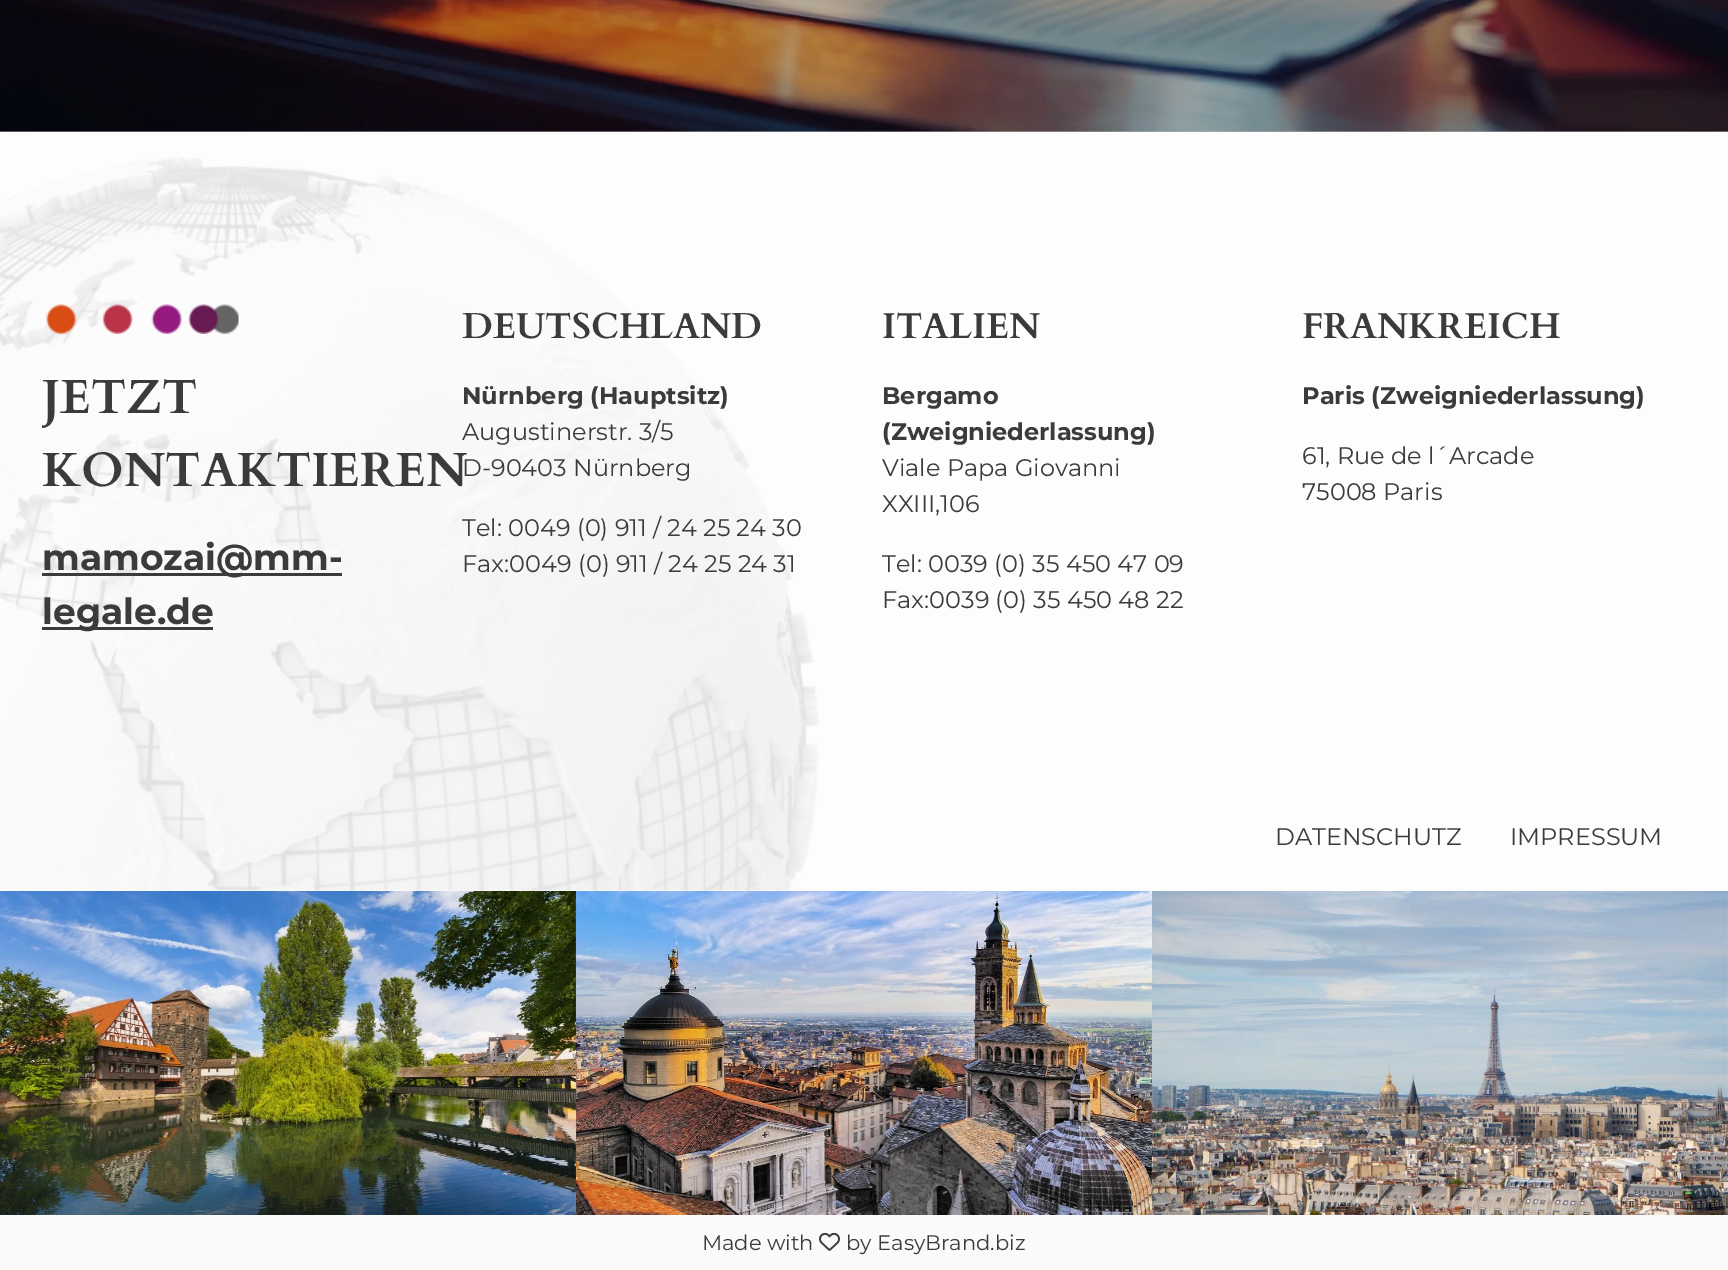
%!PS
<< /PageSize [1728 1270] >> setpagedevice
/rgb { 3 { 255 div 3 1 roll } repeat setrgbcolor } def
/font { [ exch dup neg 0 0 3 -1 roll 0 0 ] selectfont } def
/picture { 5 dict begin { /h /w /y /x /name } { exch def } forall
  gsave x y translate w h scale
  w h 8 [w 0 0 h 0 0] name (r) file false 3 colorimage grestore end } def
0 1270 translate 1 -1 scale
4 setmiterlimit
250 250 250 rgb
0 0 1728 1270 rectfill
253 253 253 rgb
0 132 1728 759 rectfill
175 175 175 rgb
0 131 1728 1 rectfill
(img/1.rgb) 0 0 1728 132 picture
(img/2.rgb) 0 157 819 734 picture
(img/3.rgb) 46 304 193 30 picture
59 59 59 rgb
42 573 300 3 rectfill
42 627 171 3 rectfill
(img/4.rgb) 0 891 576 324 picture
(img/5.rgb) 576 891 576 324 picture
(img/6.rgb) 1152 891 576 324 picture
(img/7.rgb) 819 1232 21 19 picture
gsave
42 156 1644 651 rectclip
/Cardo-Bold 48 font
42 413 moveto (JETZT) show
grestore
/Cardo-Bold 48 font
42 486 moveto (KONTAKTIEREN) show
/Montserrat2-Thin 36 font
42 570 moveto (mamozai@mm-) show
42 624 moveto (legale.de) show
/Cardo-Bold 36 font
462 338 moveto (DEUTSCHLAND) show
/Montserrat2-Thin 24 font
462 404 moveto (Nürnberg \(Hauptsitz\)) show
/Montserrat-Thin 24 font
[
  [(Augustinerstr. 3/5) 462 440]
  [(D-90403 Nürnberg) 462 476]
  [(Tel: 0049 \(0\) 911 / 24 25 24 30) 462 536]
  [(Fax:0049 \(0\) 911 / 24 25 24 31) 462 572]
] { aload pop moveto show } forall
/Cardo-Bold 36 font
882 338 moveto (ITALIEN) show
/Montserrat2-Thin 24 font
882 404 moveto (Bergamo) show
882 440 moveto (\(Zweigniederlassung\)) show
/Montserrat-Thin 24 font
[
  [(Viale Papa Giovanni) 882 476]
  [(XXIII,106) 882 512]
  [(Tel: 0039 \(0\) 35 450 47 09) 882 572]
  [(Fax:0039 \(0\) 35 450 48 22) 882 608]
] { aload pop moveto show } forall
/Cardo-Bold 36 font
1302 338 moveto (FRANKREICH) show
/Montserrat2-Thin 24 font
1302 404 moveto (Paris \(Zweigniederlassung\)) show
/Montserrat-Thin 24 font
[
  [(61, Rue de l´Arcade) 1302 464]
  [(75008 Paris) 1302 500]
  [(DATENSCHUTZ) 1275 845]
  [(IMPRESSUM) 1510 845]
] { aload pop moveto show } forall
/Montserrat-Thin 21 font
702 1250 moveto (Made with) show
846 1250 moveto (by EasyBrand.biz) show
showpage
